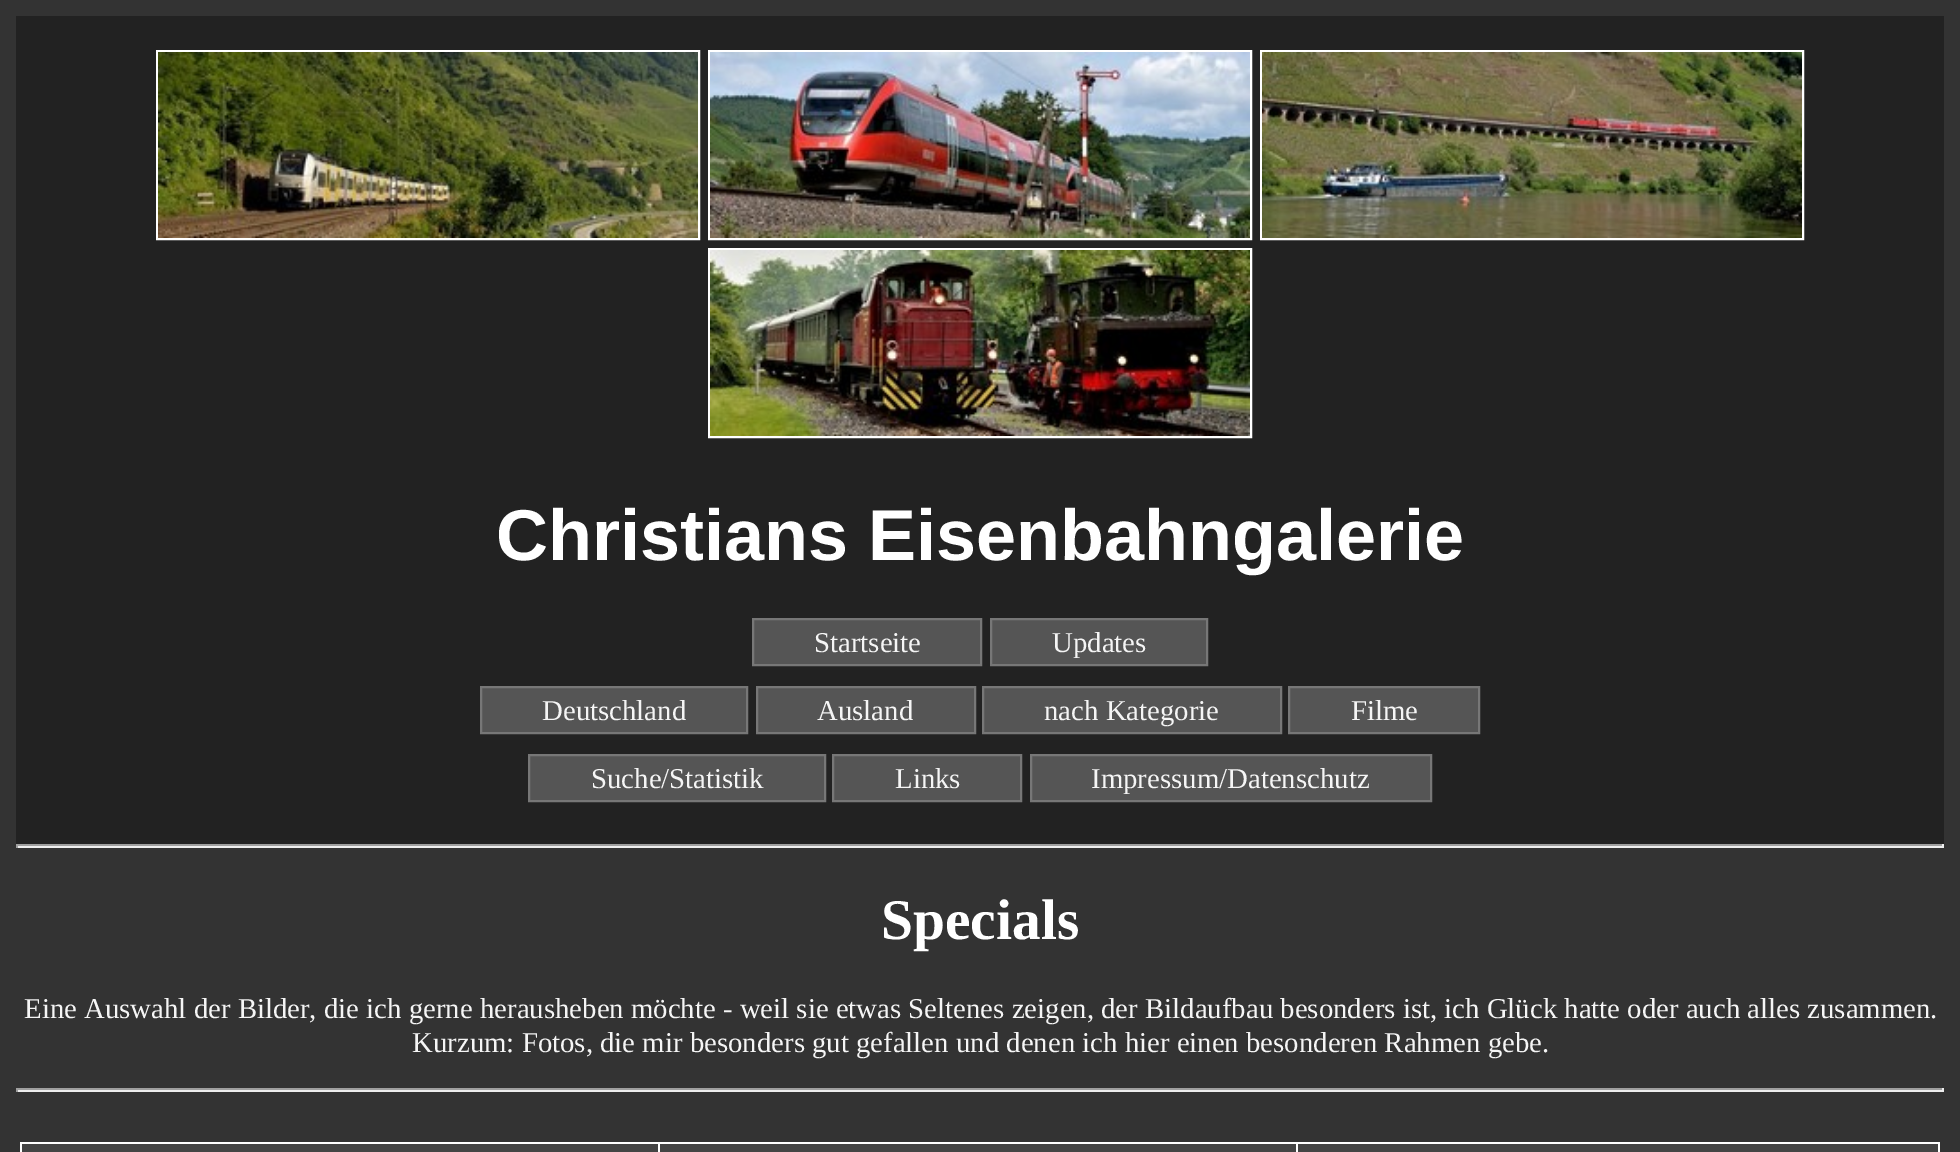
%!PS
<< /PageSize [1960 1152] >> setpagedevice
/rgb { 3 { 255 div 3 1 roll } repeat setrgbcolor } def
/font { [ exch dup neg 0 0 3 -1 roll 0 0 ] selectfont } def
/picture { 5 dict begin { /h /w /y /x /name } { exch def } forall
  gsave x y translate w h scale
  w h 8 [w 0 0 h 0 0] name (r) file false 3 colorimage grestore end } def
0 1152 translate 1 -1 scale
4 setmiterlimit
51 51 51 rgb
0 0 1960 1152 rectfill
34 34 34 rgb
16 16 1928 828 rectfill
255 255 255 rgb
2 setlinewidth
157 51 542 188 rectstroke
709 51 542 188 rectstroke
1261 51 542 188 rectstroke
(img/1.rgb) 158 52 540 186 picture
(img/2.rgb) 710 52 540 186 picture
(img/3.rgb) 1262 52 540 186 picture
709 249 542 188 rectstroke
(img/4.rgb) 710 250 540 186 picture
85 85 85 rgb
753 619 moveto 981 619 lineto 981 665 lineto 753 665 lineto closepath gsave fill grestore
119 119 119 rgb
stroke
85 85 85 rgb
991 619 moveto 1207 619 lineto 1207 665 lineto 991 665 lineto closepath gsave fill grestore
119 119 119 rgb
stroke
85 85 85 rgb
481 687 moveto 747 687 lineto 747 733 lineto 481 733 lineto closepath gsave fill grestore
119 119 119 rgb
stroke
85 85 85 rgb
757 687 moveto 975 687 lineto 975 733 lineto 757 733 lineto closepath gsave fill grestore
119 119 119 rgb
stroke
85 85 85 rgb
983 687 moveto 1281 687 lineto 1281 733 lineto 983 733 lineto closepath gsave fill grestore
119 119 119 rgb
stroke
85 85 85 rgb
1289 687 moveto 1479 687 lineto 1479 733 lineto 1289 733 lineto closepath gsave fill grestore
119 119 119 rgb
stroke
85 85 85 rgb
529 755 moveto 825 755 lineto 825 801 lineto 529 801 lineto closepath gsave fill grestore
119 119 119 rgb
stroke
85 85 85 rgb
833 755 moveto 1021 755 lineto 1021 801 lineto 833 801 lineto closepath gsave fill grestore
119 119 119 rgb
stroke
85 85 85 rgb
1031 755 moveto 1431 755 lineto 1431 801 lineto 1031 801 lineto closepath gsave fill grestore
119 119 119 rgb
stroke
[
  [16 844 1928 2 159 159 159]
  [1942 844 2 4 238 238 238]
  [16 846 1928 2 238 238 238]
  [16 844 2 4 159 159 159]
  [16 1088 1928 2 159 159 159]
  [1942 1088 2 4 238 238 238]
  [16 1090 1928 2 238 238 238]
  [16 1088 2 4 159 159 159]
  [22 1144 1916 8 68 68 68]
  [1296 1142 644 2 255 255 255]
  [1296 1142 2 10 255 255 255]
  [658 1142 640 2 255 255 255]
  [658 1142 2 10 255 255 255]
  [20 1142 640 2 255 255 255]
  [20 1142 2 10 255 255 255]
  [1938 1142 2 10 255 255 255]
] { aload pop rgb rectfill } forall
/LiberationSans-Bold 72 font
496 560 moveto (Christians Eisenbahngalerie) show
/LiberationSerif-Regular 28.8 font
245 245 245 rgb
[
  [(Startseite) 814 652]
  [(Updates) 1052 652]
  [(Deutschland) 542 720]
  [(Ausland) 817 720]
  [(nach Kategorie) 1044 720]
  [(Filme) 1351 720]
  [(Suche/Statistik) 591 788]
  [(Links) 895 788]
  [(Impressum/Datenschutz) 1091 788]
] { aload pop moveto show } forall
/LiberationSerif-Bold 57.5 font
255 255 255 rgb
881 939 moveto (Specials) show
/LiberationSerif-Regular 28.8 font
245 245 245 rgb
24 1018 moveto (Eine Auswahl der Bilder, die ich gerne herausheben möchte - weil sie etwas Seltenes zeigen, der Bildaufbau besonders ist, ich Glück hatte oder auch alles zusammen.) show
412 1052 moveto (Kurzum: Fotos, die mir besonders gut gefallen und denen ich hier einen besonderen Rahmen gebe.) show
showpage
